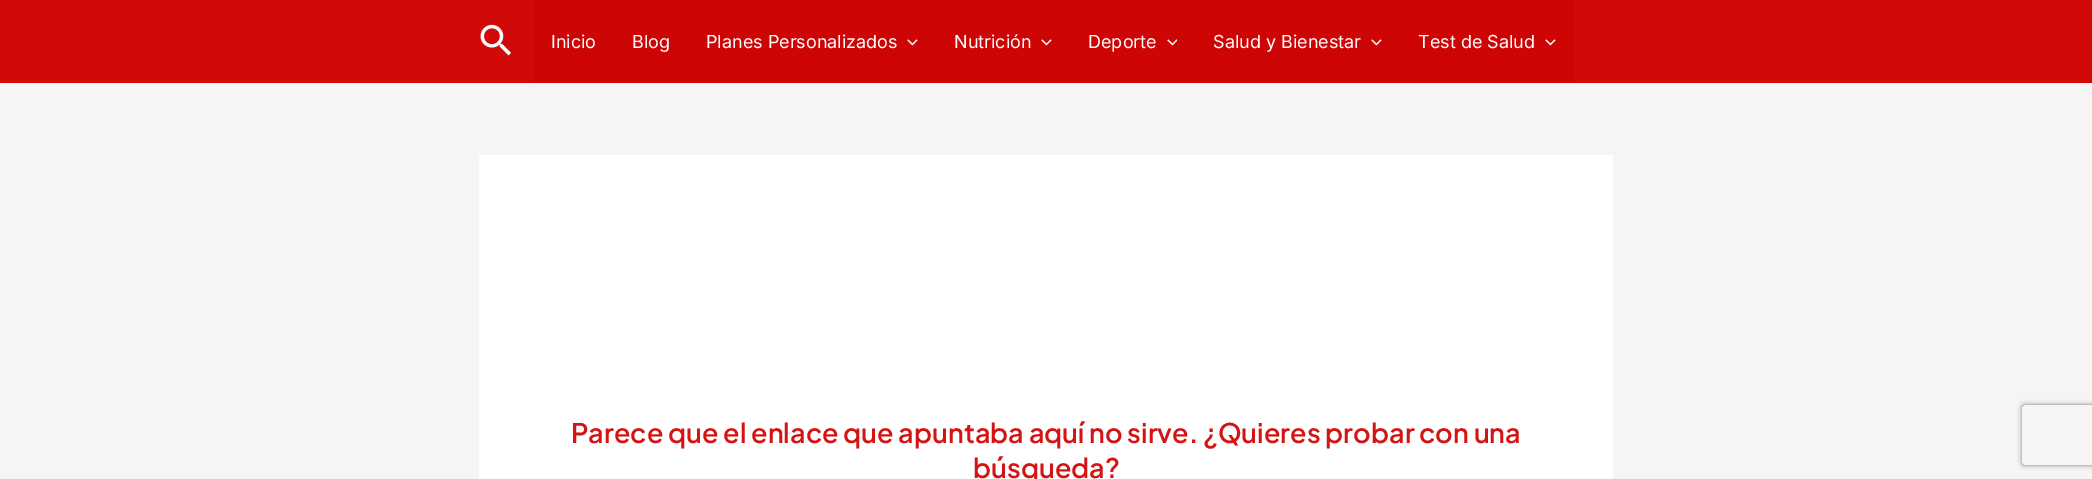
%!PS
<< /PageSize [2092 479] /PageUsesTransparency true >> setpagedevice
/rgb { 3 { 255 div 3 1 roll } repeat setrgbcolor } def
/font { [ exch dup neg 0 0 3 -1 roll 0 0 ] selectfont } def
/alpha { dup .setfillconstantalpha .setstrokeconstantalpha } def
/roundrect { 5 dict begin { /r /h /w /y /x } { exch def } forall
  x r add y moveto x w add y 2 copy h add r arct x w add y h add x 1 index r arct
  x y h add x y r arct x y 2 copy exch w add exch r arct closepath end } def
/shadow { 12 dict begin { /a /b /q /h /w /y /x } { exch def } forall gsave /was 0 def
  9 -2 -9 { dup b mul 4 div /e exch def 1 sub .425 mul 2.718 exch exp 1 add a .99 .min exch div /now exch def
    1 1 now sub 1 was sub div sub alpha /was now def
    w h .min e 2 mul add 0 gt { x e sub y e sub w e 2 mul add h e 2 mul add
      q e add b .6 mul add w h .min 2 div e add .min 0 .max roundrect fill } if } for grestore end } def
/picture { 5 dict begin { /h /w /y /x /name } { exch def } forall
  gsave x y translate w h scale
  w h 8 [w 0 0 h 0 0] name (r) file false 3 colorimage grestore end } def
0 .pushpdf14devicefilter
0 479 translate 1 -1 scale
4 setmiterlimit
245 245 245 rgb
0 0 2092 479 rectfill
209 9 9 rgb
0 0 2092 83 rectfill
(img/1.rgb) 480 24 31 32 picture
206 5 5 rgb
533 0 1041 83 rectfill
(img/2.rgb) 907 39 11 7 picture
(img/2.rgb) 1041 39 11 7 picture
(img/3.rgb) 1167 39 10 7 picture
(img/2.rgb) 1371 39 11 7 picture
(img/2.rgb) 1545 39 11 7 picture
255 255 255 rgb
479 155 1134 324 rectfill
gsave
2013 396 moveto 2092 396 lineto 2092 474 lineto 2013 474 lineto closepath 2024 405 moveto 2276 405 lineto 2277 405 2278 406 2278 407 curveto 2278 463 lineto 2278 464 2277 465 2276 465 curveto 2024 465 lineto 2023 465 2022 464 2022 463 curveto 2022 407 lineto 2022 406 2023 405 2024 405 curveto closepath eoclip newpath
128 128 128 rgb
2022 405 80 60 2 2.5 1 shadow
grestore
/Inter-Regular 18 font
253 253 253 rgb
[
  [(Inicio) 551 48]
  [(Blog) 632 48]
  [(Planes Personalizados) 706 48]
  [(Nutrición) 954 48]
  [(Deporte) 1088 48]
  [(Salud y Bienestar) 1213 48]
  [(Test de Salud) 1418 48]
] { aload pop moveto show } forall
/PlusJakartaSans-SemiBold 27 font
212 20 20 rgb
571 443 moveto (Parece que el enlace que apuntaba aquí no sirve. ¿Quieres probar con una) show
973 478 moveto (búsqueda?) show
.poppdf14devicefilter showpage
